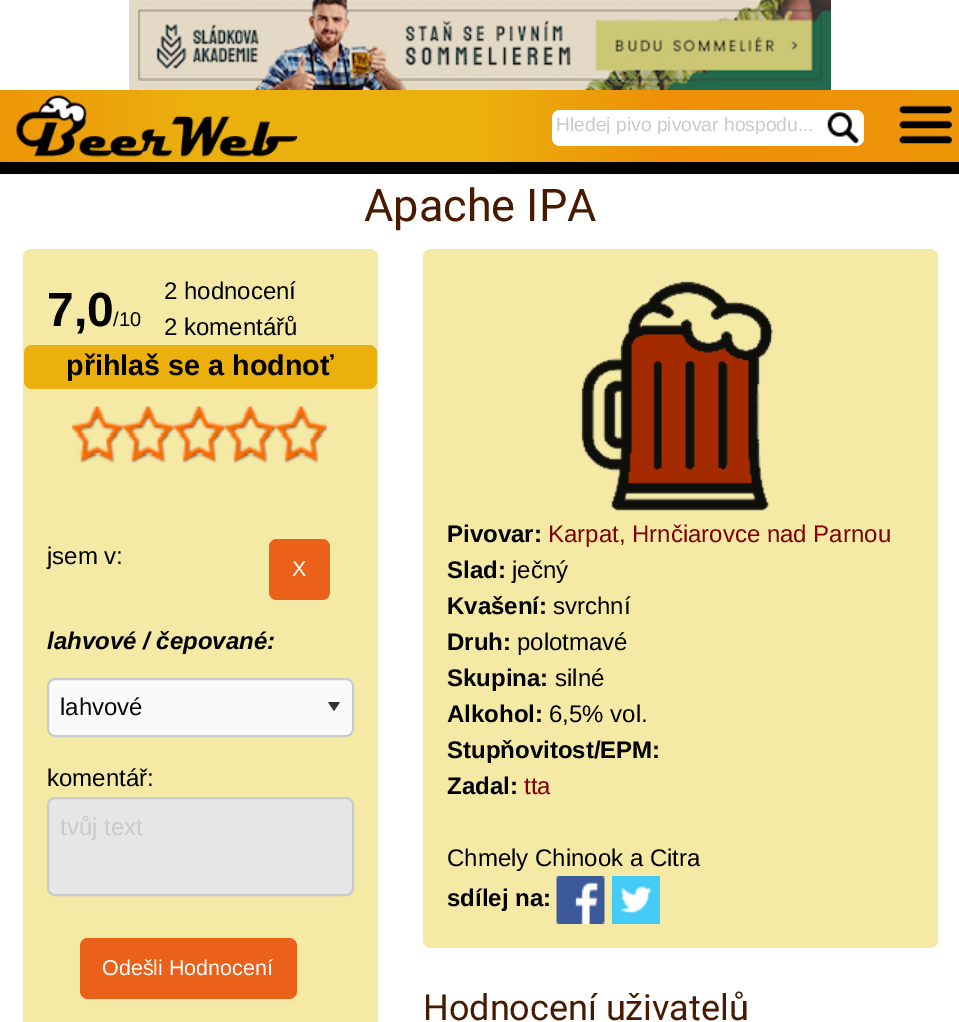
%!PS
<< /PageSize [959 1022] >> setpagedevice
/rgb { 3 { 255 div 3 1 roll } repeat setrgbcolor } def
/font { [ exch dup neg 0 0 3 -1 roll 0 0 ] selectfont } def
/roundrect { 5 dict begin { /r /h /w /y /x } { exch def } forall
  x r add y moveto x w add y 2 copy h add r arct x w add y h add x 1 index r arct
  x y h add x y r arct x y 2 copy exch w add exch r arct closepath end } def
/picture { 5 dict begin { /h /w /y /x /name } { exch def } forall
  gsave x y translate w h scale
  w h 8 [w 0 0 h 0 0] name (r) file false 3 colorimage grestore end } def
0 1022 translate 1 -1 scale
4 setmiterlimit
255 255 255 rgb
0 0 959 1022 rectfill
(img/1.rgb) 129 0 702 90 picture
gsave 0 90 moveto 959 90 lineto 959 162 lineto 0 162 lineto closepath clip newpath
<< /ShadingType 2 /ColorSpace /DeviceRGB /Coords [0 126 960 126] /Extend [true true] /Function << /FunctionType 3 /Domain [0 1] /Functions [<< /FunctionType 2 /Domain [0 1] /C0 [0.933 0.584 0.031] /C1 [0.922 0.69 0.055] /N 1 >> << /FunctionType 2 /Domain [0 1] /C0 [0.922 0.69 0.055] /C1 [0.922 0.69 0.055] /N 1 >> << /FunctionType 2 /Domain [0 1] /C0 [0.922 0.69 0.055] /C1 [0.937 0.561 0.027] /N 1 >> << /FunctionType 2 /Domain [0 1] /C0 [0.937 0.561 0.027] /C1 [0.933 0.584 0.031] /N 1 >>] /Bounds [0.2 0.5 0.7] /Encode [0 1 0 1 0 1 0 1] >> >> shfill grestore
(img/2.rgb) 16 92 284 65 picture
552 110 312 36 8 roundrect fill
(img/3.rgb) 827 112 32 32 picture
(img/4.rgb) 899 105 53 39 picture
0 0 0 rgb
0 162 959 12 rectfill
245 233 166 rgb
23 249 355 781 8 roundrect fill
235 176 14 rgb
24 345 353 44 8 roundrect fill
(img/5.rgb) 72 406 255 58 picture
235 97 25 rgb
269 539 61 61 8 roundrect fill
250 250 250 rgb
47 678 307 59 8 roundrect fill
51 51 51 rgb
328 702 moveto 340 702 lineto 334 711 lineto closepath fill
202 202 202 rgb
2 setlinewidth
48 679 305 57 7 roundrect stroke
230 230 230 rgb
48 798 305 97 7 roundrect gsave fill grestore
202 202 202 rgb
stroke
235 97 25 rgb
80 938 217 61 8 roundrect fill
245 233 166 rgb
423 249 515 699 8 roundrect fill
(img/6.rgb) 581 281 192 230 picture
(img/7.rgb) 556 876 49 48 picture
(img/8.rgb) 612 876 48 48 picture
gsave
552 116 312 18 8 roundrect clip newpath
/LiberationSans-Regular 19.25 font
202 202 202 rgb
556 131 moveto (Hledej pivo pivovar hospodu...) show
grestore
/Roboto-Regular 45 font
72 26 0 rgb
364 221 moveto (Apache IPA) show
/LiberationSans-Bold 48 font
0 0 0 rgb
47 326 moveto (7,0) show
/LiberationSans-Regular 20 font
113 326 moveto (/10) show
/LiberationSans-Regular 24 font
164 299 moveto (2 hodnocení) show
164 335 moveto (2 komentářů) show
/LiberationSans-Bold 28.75 font
66 375 moveto (přihlaš se a hodnoť) show
/LiberationSans-Regular 24 font
47 564 moveto (jsem v:) show
/LiberationSans-Regular 21.5 font
255 255 255 rgb
292 576 moveto (X) show
/LiberationSans-BoldItalic 24 font
0 0 0 rgb
47 649 moveto (lahvové / čepované:) show
/LiberationSans-Regular 24 font
10 10 10 rgb
60 715 moveto (lahvové) show
0 0 0 rgb
47 786 moveto (komentář:) show
202 202 202 rgb
60 835 moveto (tvůj text) show
/LiberationSans-Regular 21.5 font
255 255 255 rgb
102 975 moveto (Odešli Hodnocení) show
/LiberationSans-Bold 24 font
0 0 0 rgb
447 542 moveto (Pivovar:) show
/LiberationSans-Regular 24 font
128 0 1 rgb
548 542 moveto (Karpat, Hrnčiarovce nad Parnou) show
/LiberationSans-Bold 24 font
0 0 0 rgb
447 578 moveto (Slad:) show
/LiberationSans-Regular 24 font
512 578 moveto (ječný) show
/LiberationSans-Bold 24 font
447 614 moveto (Kvašení:) show
/LiberationSans-Regular 24 font
553 614 moveto (svrchní) show
/LiberationSans-Bold 24 font
447 650 moveto (Druh:) show
/LiberationSans-Regular 24 font
517 650 moveto (polotmavé) show
/LiberationSans-Bold 24 font
447 686 moveto (Skupina:) show
/LiberationSans-Regular 24 font
555 686 moveto (silné) show
/LiberationSans-Bold 24 font
447 722 moveto (Alkohol:) show
/LiberationSans-Regular 24 font
549 722 moveto (6,5% vol.) show
/LiberationSans-Bold 24 font
447 758 moveto (Stupňovitost/EPM:) show
447 794 moveto (Zadal:) show
/LiberationSans-Regular 24 font
128 0 1 rgb
524 794 moveto (tta) show
0 0 0 rgb
447 866 moveto (Chmely Chinook a Citra) show
/LiberationSans-Bold 24 font
447 906 moveto (sdílej na:) show
/Roboto-Regular 36 font
72 26 0 rgb
423 1020 moveto (Hodnocení uživatelů) show
showpage
